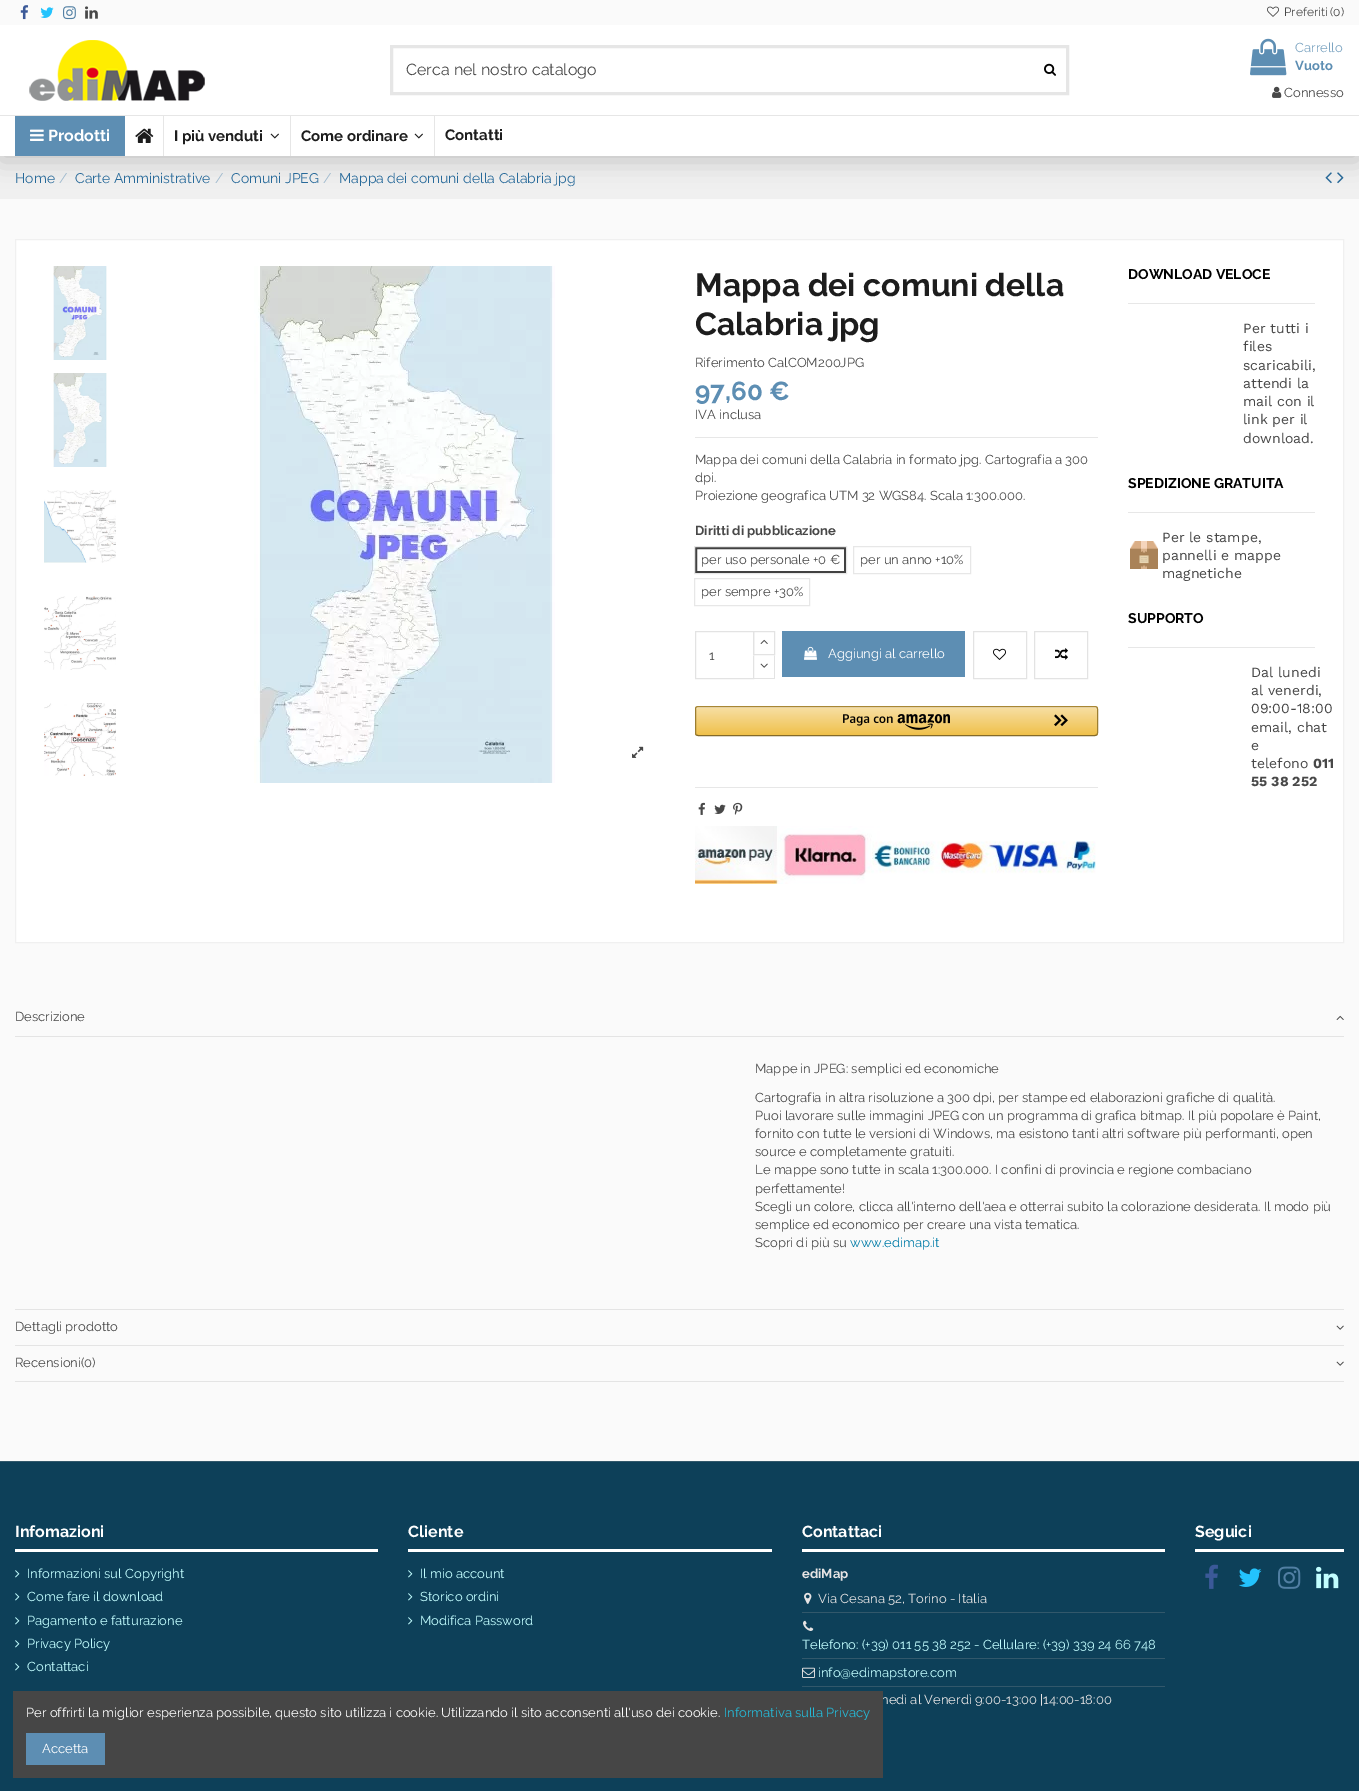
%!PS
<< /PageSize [1359 1791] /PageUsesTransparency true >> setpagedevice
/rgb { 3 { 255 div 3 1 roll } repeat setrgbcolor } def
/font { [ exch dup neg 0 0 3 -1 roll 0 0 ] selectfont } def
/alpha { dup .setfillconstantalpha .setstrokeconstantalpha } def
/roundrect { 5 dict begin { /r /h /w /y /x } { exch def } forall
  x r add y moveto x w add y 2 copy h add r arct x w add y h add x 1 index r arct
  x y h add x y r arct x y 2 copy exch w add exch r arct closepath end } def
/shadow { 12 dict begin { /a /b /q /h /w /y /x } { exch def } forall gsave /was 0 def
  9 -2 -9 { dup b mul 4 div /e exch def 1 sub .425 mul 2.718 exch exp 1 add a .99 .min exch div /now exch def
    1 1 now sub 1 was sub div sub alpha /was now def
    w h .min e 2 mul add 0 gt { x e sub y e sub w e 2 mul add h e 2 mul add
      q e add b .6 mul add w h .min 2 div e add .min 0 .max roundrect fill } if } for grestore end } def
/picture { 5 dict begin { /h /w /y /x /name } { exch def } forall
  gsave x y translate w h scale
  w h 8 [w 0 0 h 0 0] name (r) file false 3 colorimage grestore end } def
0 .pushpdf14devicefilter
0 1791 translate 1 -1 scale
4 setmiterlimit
250 250 250 rgb
0 0 1359 1791 rectfill
240 240 240 rgb
0 156 1359 43 rectfill
(img/13.rgb) 1325 172 7 12 picture
(img/14.rgb) 1337 172 7 12 picture
0 0 0 rgb
0 5 1359 156 0 12.5 0.18 shadow
255 255 255 rgb
0 25 1359 131 rectfill
250 250 250 rgb
0 0 1359 25 rectfill
(img/1.rgb) 20 5 9 15 picture
(img/2.rgb) 40 7 14 11 picture
(img/3.rgb) 63 6 13 14 picture
(img/4.rgb) 85 6 13 13 picture
(img/5.rgb) 1267 6 12 11 picture
(img/6.rgb) 29 40 176 61 picture
230 230 230 rgb
3 setlinewidth
391.5 46.5 676 47 rectstroke
(img/7.rgb) 1044 63 12 13 picture
(img/8.rgb) 1250 38 37 38 picture
(img/9.rgb) 1272 86 10 12 picture
0 115 1359 1 rectfill
93 142 179 rgb
15 116 110 40 rectfill
(img/10.rgb) 30 129 14 12 picture
(img/11.rgb) 135 128 19 15 picture
230 230 230 rgb
163 116 1 40 rectfill
(img/12.rgb) 270 133 9 6 picture
290 116 1 40 rectfill
(img/12.rgb) 414 133 9 6 picture
434 116 1 40 rectfill
255 255 255 rgb
15.5 239.5 moveto 1343.5 239.5 lineto 1343.5 942.5 lineto 15.5 942.5 lineto closepath gsave fill grestore
240 240 240 rgb
1 setlinewidth
stroke
(img/15.rgb) 53 266 54 94 picture
(img/16.rgb) 53 373 54 94 picture
(img/17.rgb) 44 490 72 73 picture
(img/18.rgb) 44 596 72 74 picture
(img/19.rgb) 44 703 72 73 picture
(img/20.rgb) 254 266 301 517 picture
(img/21.rgb) 632 746 12 12 picture
231 231 231 rgb
695 437 403 1 rectfill
65 65 65 rgb
2 setlinewidth
696 548 149 24 rectstroke
231 231 231 rgb
1 setlinewidth
694.5 546.5 152 27 rectstroke
853.5 546.5 117 27 rectstroke
694.5 578.5 115 27 rectstroke
227 227 227 rgb
695.5 631.5 58 47 rectstroke
753.5 631.5 21 23 rectstroke
(img/22.rgb) 760 639 8 5 picture
255 255 255 rgb
753 655 1 23 rectfill
227 227 227 rgb
775 655 moveto 775 679 lineto 774 678 lineto 774 656 lineto closepath fill
753 678 22 1 rectfill
753 679 moveto 753 655 lineto 754 656 lineto 754 678 lineto closepath fill
(img/23.rgb) 760 663 8 5 picture
93 142 179 rgb
782 631 183 46 rectfill
(img/24.rgb) 804 646 13 14 picture
227 227 227 rgb
973.5 631.5 53 47 rectstroke
(img/25.rgb) 993 648 13 12 picture
1034.5 631.5 53 47 rectstroke
(img/26.rgb) 1055 648 13 12 picture
gsave
695 706 403 30 3 roundrect clip newpath
gsave 695 707 moveto 1098 707 lineto 1098 735 lineto 695 735 lineto closepath clip newpath
<< /ShadingType 2 /ColorSpace /DeviceRGB /Coords [897 707 897 735] /Extend [true true] /Function << /FunctionType 2 /Domain [0 1] /C0 [0.969 0.875 0.647] /C1 [0.941 0.757 0.294] /N 1 >> >> shfill grestore
grestore
0.4 alpha
255 255 255 rgb
698 708 moveto 1095 708 lineto 1096 708 1097 709 1097 710 curveto 1097 709 1097 707 1095 707 curveto 698 707 lineto 696 708 lineto 696 710 lineto 696 709 697 708 698 708 curveto closepath fill
1 alpha
168 135 52 rgb
696 707 moveto 698 706.5 lineto 1095 706.5 lineto 1097 707 lineto stroke
156 126 49 rgb
1097 707 moveto 1097 707.5 1097.5 708.5 1097.5 709 curveto 1097.5 733 lineto 1097.5 733.5 1097 734.5 1097 735 curveto stroke
132 106 41 rgb
1097 735 moveto 1095 735.5 lineto 698 735.5 lineto 696 735 lineto stroke
156 126 49 rgb
696 735 moveto 696 734.5 695.5 733.5 695.5 733 curveto 695.5 709 lineto 695.5 708.5 696 707.5 696 707 curveto stroke
(img/27.rgb) 843 714 107 16 picture
(img/28.rgb) 1054 714 14 13 picture
231 231 231 rgb
695 787 403 1 rectfill
(img/29.rgb) 698 802 7 13 picture
(img/30.rgb) 714 804 12 10 picture
(img/31.rgb) 733 802 10 13 picture
(img/32.rgb) 695 826 401 58 picture
1128 303 187 1 rectfill
1128 512 187 1 rectfill
(img/33.rgb) 1130 541 28 28 picture
1128 647 187 1 rectfill
228 228 228 rgb
15 1036 1329 1 rectfill
(img/34.rgb) 1336 1015 8 5 picture
15 1309 1329 1 rectfill
15 1345 1329 1 rectfill
(img/35.rgb) 1336 1325 8 5 picture
15 1381 1329 1 rectfill
(img/35.rgb) 1336 1361 8 5 picture
[
  [0 1462 1359 329 13 64 89]
  [0 1461 1359 1 50 88 107]
  [15 1549 363 3 255 255 255]
] { aload pop rgb rectfill } forall
(img/36.rgb) 15 1570 5 8 picture
(img/36.rgb) 15 1593 5 8 picture
(img/36.rgb) 15 1617 5 8 picture
(img/36.rgb) 15 1640 5 8 picture
(img/36.rgb) 15 1663 5 8 picture
408 1549 364 3 rectfill
(img/36.rgb) 408 1570 5 8 picture
(img/36.rgb) 408 1593 5 8 picture
(img/36.rgb) 408 1617 5 8 picture
802 1549 363 3 rectfill
(img/37.rgb) 804 1592 8 12 picture
50 88 107 rgb
802 1612 363 1 rectfill
(img/38.rgb) 803 1620 11 11 picture
802 1658 363 1 rectfill
(img/39.rgb) 802 1667 13 11 picture
802 1686 363 1 rectfill
255 255 255 rgb
1195 1549 149 3 rectfill
(img/40.rgb) 1205 1564 13 25 picture
(img/41.rgb) 1239 1568 23 19 picture
(img/42.rgb) 1278 1566 23 23 picture
(img/43.rgb) 1316 1566 23 23 picture
/Raleway-Regular 12 font
72 72 72 rgb
1284 16 moveto (Preferiti \(0\)) show
/Raleway-Regular 16 font
406 75 moveto (Cerca nel nostro catalogo) show
/Raleway-Regular 13 font
125 165 194 rgb
1295 52 moveto (Carrello) show
/Raleway-Bold 13 font
93 142 179 rgb
1295 70 moveto (Vuoto) show
/Raleway-Regular 13 font
72 72 72 rgb
1284 97 moveto (Connesso) show
/Raleway-Bold 16 font
255 255 255 rgb
48 141 moveto (Prodotti) show
/Raleway-Bold 15 font
29 29 29 rgb
[
  [(I più venduti) 174 141]
  [(Come ordinare) 301 141]
  [(Contatti) 445 140]
] { aload pop moveto show } forall
/Raleway-Regular 14 font
40 106 154 rgb
15 183 moveto (Home) show
160 186 206 rgb
59 183 moveto (/) show
40 106 154 rgb
75 183 moveto (Carte Amministrative) show
160 186 206 rgb
215 183 moveto (/) show
40 106 154 rgb
231 183 moveto (Comuni JPEG) show
160 186 206 rgb
323 183 moveto (/) show
40 106 154 rgb
339 183 moveto (Mappa dei comuni della Calabria jpg) show
/Raleway-Bold 32 font
29 29 29 rgb
695 296 moveto (Mappa dei comuni della) show
695 335 moveto (Calabria jpg) show
/Raleway-Regular 13 font
72 72 72 rgb
695 367 moveto (Riferimento CalCOM200JPG) show
/Raleway-Bold 26 font
93 142 179 rgb
695 400 moveto (97,60 €) show
/Raleway-Regular 13 font
72 72 72 rgb
[
  [(IVA inclusa) 695 419]
  [(Mappa dei comuni della Calabria in formato jpg. Cartografia a 300) 695 464]
  [(dpi.) 695 482]
  [(Proiezione geografica UTM 32 WGS84. Scala 1:300.000.) 695 500]
] { aload pop moveto show } forall
/Raleway-Bold 13 font
695 535 moveto (Diritti di pubblicazione) show
/Raleway-Regular 13 font
[
  [(per uso personale +0 €) 701 564]
  [(per un anno +10%) 860 564]
  [(per sempre +30%) 701 596]
  [(1) 709 660]
] { aload pop moveto show } forall
255 255 255 rgb
828 658 moveto (Aggiungi al carrello) show
/Raleway-Bold 14 font
0 0 0 rgb
1128 279 moveto (DOWNLOAD VELOCE) show
/WorkSans-Regular 14 font
72 72 72 rgb
[
  [(Per tutti i) 1243 333]
  [(files) 1243 351]
  [(scaricabili,) 1243 370]
  [(attendi la) 1243 388]
  [(mail con il) 1243 406]
  [(link per il) 1243 424]
  [(download.) 1243 443]
] { aload pop moveto show } forall
/Raleway-Bold 14 font
0 0 0 rgb
1128 488 moveto (SPEDIZIONE GRATUITA) show
/WorkSans-Regular 14 font
72 72 72 rgb
[
  [(Per le stampe,) 1162 542]
  [(pannelli e mappe) 1162 560]
  [(magnetiche) 1162 578]
] { aload pop moveto show } forall
/Raleway-Bold 14 font
0 0 0 rgb
1128 623 moveto (SUPPORTO) show
/WorkSans-Regular 14 font
72 72 72 rgb
[
  [(Dal lunedi) 1251 677]
  [(al venerdi,) 1251 695]
  [(09:00-18:00) 1251 713]
  [(email, chat) 1251 732]
  [(e) 1251 750]
  [(telefono) 1251 768]
] { aload pop moveto show } forall
/WorkSans-Bold 14 font
1313 768 moveto (011) show
1251 786 moveto (55 38 252) show
/Raleway-Regular 13 font
[
  [(Descrizione) 15 1021]
  [(Mappe in JPEG: semplici ed economiche) 755 1073]
  [(Cartografia in altra risoluzione a 300 dpi, per stampe ed elaborazioni grafiche di qualità.) 755 1102]
  [(Puoi lavorare sulle immagini JPEG con un programma di grafica bitmap. Il più popolare è Paint,) 755 1120]
  [(fornito con tutte le versioni di Windows, ma esistono tanti altri software più performanti, open) 755 1138]
  [(source e completamente gratuiti.) 755 1156]
  [(Le mappe sono tutte in scala 1:300.000. I confini di provincia e regione combaciano) 755 1174]
  [(perfettamente!) 755 1193]
  [(Scegli un colore, clicca all'interno dell'aea e otterrai subito la colorazione desiderata. Il modo più) 755 1211]
  [(semplice ed economico per creare una vista tematica.) 755 1229]
  [(Scopri di più su) 755 1247]
] { aload pop moveto show } forall
2 124 168 rgb
850 1247 moveto (www.edimap.it) show
72 72 72 rgb
15 1331 moveto (Dettagli prodotto) show
15 1367 moveto (Recensioni\(0\)) show
/Raleway-Bold 16 font
255 255 255 rgb
15 1537 moveto (Infomazioni) show
/Raleway-Regular 13 font
194 254 255 rgb
[
  [(Informazioni sul Copyright) 27 1578]
  [(Come fare il download) 27 1601]
  [(Pagamento e fatturazione) 27 1625]
  [(Privacy Policy) 27 1648]
  [(Contattaci) 27 1671]
] { aload pop moveto show } forall
/Raleway-Bold 16 font
255 255 255 rgb
408 1537 moveto (Cliente) show
/Raleway-Regular 13 font
194 254 255 rgb
[
  [(Il mio account) 420 1578]
  [(Storico ordini) 420 1601]
  [(Modifica Password) 420 1625]
] { aload pop moveto show } forall
/Raleway-Bold 16 font
255 255 255 rgb
802 1537 moveto (Contattaci) show
/Raleway-Bold 13 font
230 228 228 rgb
802 1578 moveto (ediMap) show
/Raleway-Regular 13 font
818 1603 moveto (Via Cesana 52, Torino - Italia) show
194 254 255 rgb
802 1649 moveto (Telefono: \(+39\) 011 55 38 252 - Cellulare: \(+39\) 339 24 66 748) show
818 1677 moveto (info@edimapstore.com) show
230 228 228 rgb
881 1704 moveto (nedì al Venerdì 9:00-13:00 |14:00-18:00) show
/Raleway-Bold 16 font
255 255 255 rgb
1195 1537 moveto (Seguici) show
70 70 70 rgb
13 1691 870 87 rectfill
/Raleway-Regular 13 font
255 255 255 rgb
26 1717 moveto (Per offrirti la miglior esperienza possibile, questo sito utilizza i cookie. Utilizzando il sito acconsenti all'uso dei cookie.) show
37 185 215 rgb
724 1717 moveto (Informativa sulla Privacy) show
93 142 179 rgb
26 1733 79 32 rectfill
255 255 255 rgb
42 1753 moveto (Accetta) show
.poppdf14devicefilter showpage
